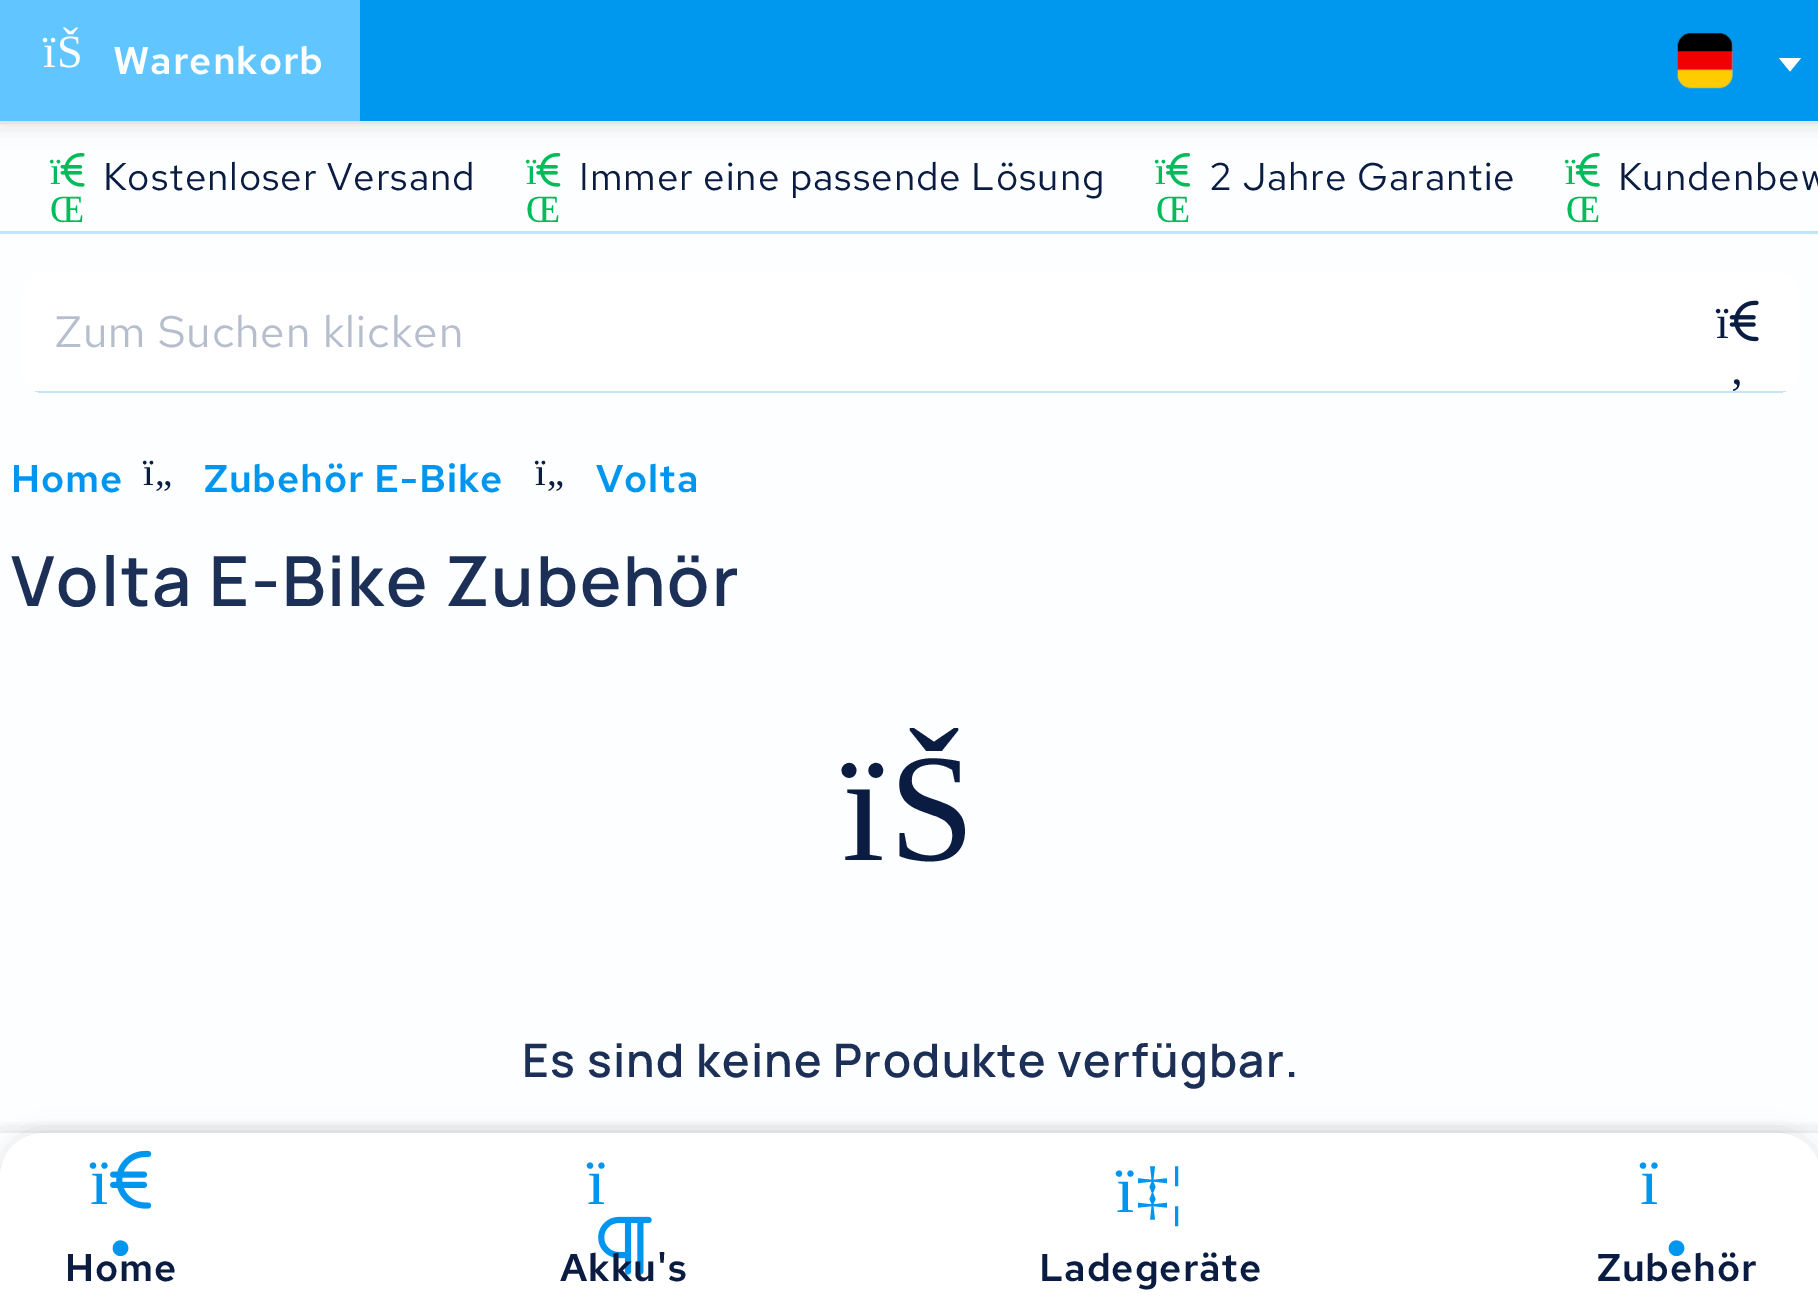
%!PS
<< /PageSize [1818 1308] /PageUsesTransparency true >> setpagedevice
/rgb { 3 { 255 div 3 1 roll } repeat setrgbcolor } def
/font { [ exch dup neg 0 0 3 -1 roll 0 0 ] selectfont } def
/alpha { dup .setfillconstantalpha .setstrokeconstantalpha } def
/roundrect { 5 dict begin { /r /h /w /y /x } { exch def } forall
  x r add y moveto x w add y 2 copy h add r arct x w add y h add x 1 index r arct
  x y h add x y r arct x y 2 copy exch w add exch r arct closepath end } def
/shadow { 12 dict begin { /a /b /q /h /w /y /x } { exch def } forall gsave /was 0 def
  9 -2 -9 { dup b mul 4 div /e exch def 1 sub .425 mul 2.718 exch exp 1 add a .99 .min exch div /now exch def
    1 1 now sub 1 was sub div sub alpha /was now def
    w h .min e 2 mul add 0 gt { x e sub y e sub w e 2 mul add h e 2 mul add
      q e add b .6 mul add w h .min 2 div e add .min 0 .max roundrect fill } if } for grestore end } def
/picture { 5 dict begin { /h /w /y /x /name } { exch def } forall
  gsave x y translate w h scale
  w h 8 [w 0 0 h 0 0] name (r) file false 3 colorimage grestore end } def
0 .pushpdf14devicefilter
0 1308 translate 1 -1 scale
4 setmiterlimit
252 254 255 rgb
0 0 1818 1308 rectfill
(img/2.rgb) 60 153 25 34 picture
(img/3.rgb) 536 153 25 34 picture
(img/4.rgb) 1166 153 24 34 picture
(img/5.rgb) 1575 153 25 34 picture
0 0 0 rgb
0 0 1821 124 0 11 0.12 shadow
[
  [360 0 1458 121 0 151 239]
  [0 121 1818 3 225 228 235]
  [0 0 360 121 97 197 255]
] { aload pop rgb rectfill } forall
(img/1.rgb) 1677 33 56 56 picture
255 255 255 rgb
1779 58 moveto 1801 58 lineto 1790 71.5 lineto closepath fill
192 229 251 rgb
0 231 1818 3 rectfill
255 255 255 rgb
44 272 moveto 1678 272 lineto 1678 393 lineto 44 393 lineto 32 393 22 383 22 371 curveto 22 294 lineto 22 282 32 272 44 272 curveto closepath fill
gsave
22 272 1777 121 22 roundrect clip newpath
194 230 251 rgb
35 391 1643 2 rectfill
grestore
1678 272 moveto 1777 272 lineto 1789 272 1799 282 1799 294 curveto 1799 371 lineto 1799 383 1789 393 1777 393 curveto 1678 393 lineto closepath fill
gsave
22 272 1777 121 22 roundrect clip newpath
194 230 251 rgb
1678 391 108 2 rectfill
grestore
(img/6.rgb) 1729 300 30 42 picture
0 0 0 rgb
0 1133 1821 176 44 11 0.12 shadow
255 255 255 rgb
44 1133 moveto 1777 1133 lineto 1801.5 1133 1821 1152.5 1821 1177 curveto 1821 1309 lineto 0 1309 lineto 0 1177 lineto 0 1152.5 19.5 1133 44 1133 curveto closepath fill
gsave
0 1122 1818 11 rectclip
0 0 0 rgb
0 1133 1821 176 0 11 0.12 shadow
grestore
(img/7.rgb) 110 1150 42 59 picture
(img/8.rgb) 598 1216 54 59 picture
/LiberationSerif-Regular 46.25 font
43 67 moveto 1 0 (ïŠ) ashow
/RedHatText-SemiBold 38.5 font
113 74 moveto 0.95 0 (Warenkorb) ashow
/LiberationSerif-Regular 38.5 font
0 188 89 rgb
50 184 moveto 0.95 0 (ï) ashow
50 222 moveto 0.95 0 (Œ) ashow
/RedHatText-Regular 38.5 font
10 28 66 rgb
103 190 moveto 0.95 0 (Kostenloser Versand) ashow
/LiberationSerif-Regular 38.5 font
0 188 89 rgb
526 184 moveto 0.95 0 (ï) ashow
526 222 moveto 0.95 0 (Œ) ashow
/RedHatText-Regular 38.5 font
10 28 66 rgb
579 190 moveto 0.95 0 (Immer eine passende Lösung) ashow
/LiberationSerif-Regular 38.5 font
0 188 89 rgb
1155 184 moveto 0.95 0 (ï) ashow
1156 222 moveto 0.95 0 (Œ) ashow
/RedHatText-Regular 38.5 font
10 28 66 rgb
1209 190 moveto 0.95 0 (2 Jahre Garantie) ashow
/LiberationSerif-Regular 38.5 font
0 188 89 rgb
1565 184 moveto 0.95 0 (ï) ashow
1566 222 moveto 0.95 0 (Œ) ashow
/RedHatText-Regular 38.5 font
10 28 66 rgb
1618 190 moveto 0.95 0 (Kundenbew) ashow
/RedHatText-Regular 44 font
182 190 205 rgb
55 347 moveto 1.1 0 (Zum Suchen klicken) ashow
/LiberationSerif-Regular 46.25 font
10 28 66 rgb
1716 338 moveto 1 0 (ï) ashow
1729 384 moveto 1 0 (‚) ashow
/RedHatText-SemiBold 38.5 font
0 150 239 rgb
11 492 moveto 0.95 0 (Home) ashow
/LiberationSerif-Regular 38.5 font
10 28 66 rgb
143 485 moveto 0.95 0 (ï„) ashow
/RedHatText-SemiBold 38.5 font
0 150 239 rgb
204 492 moveto 0.95 0 (Zubehör E-Bike) ashow
/LiberationSerif-Regular 38.5 font
10 28 66 rgb
535 485 moveto 0.95 0 (ï„) ashow
/RedHatText-SemiBold 38.5 font
0 150 239 rgb
596 492 moveto 0.95 0 (Volta) ashow
/Manrope-SemiBold 69.25 font
28 47 87 rgb
11 606 moveto 1.9 0 (Volta E-Bike Zubehör) ashow
/LiberationSerif-Regular 154 font
10 28 66 rgb
842 860 moveto 4 0 (ïŠ) ashow
/Manrope-SemiBold 46.25 font
28 47 87 rgb
522 1077 moveto 1.3 0 (Es sind keine Produkte verfügbar.) ashow
/LiberationSerif-Regular 66 font
0 150 239 rgb
90 1204 moveto 1.5 0 (ï) ashow
109 1270 moveto 1.5 0 (•) ashow
/RedHatText-SemiBold 38.5 font
10 28 66 rgb
65 1281 moveto 0.95 0 (Home) ashow
/LiberationSerif-Regular 66 font
0 150 239 rgb
587 1204 moveto 1.5 0 (ï) ashow
/RedHatText-SemiBold 38.5 font
10 28 66 rgb
560 1281 moveto 0.95 0 (Akku's) ashow
/LiberationSerif-Regular 66 font
0 150 239 rgb
1116 1212 moveto 1.5 0 (ï‡¦) ashow
/RedHatText-SemiBold 38.5 font
10 28 66 rgb
1039 1281 moveto 0.95 0 (Ladegeräte) ashow
/LiberationSerif-Regular 66 font
0 150 239 rgb
1640 1204 moveto 1.5 0 (ï) ashow
1665 1270 moveto 1.5 0 (•) ashow
/RedHatText-SemiBold 38.5 font
10 28 66 rgb
1597 1281 moveto 0.95 0 (Zubehör) ashow
.poppdf14devicefilter showpage
